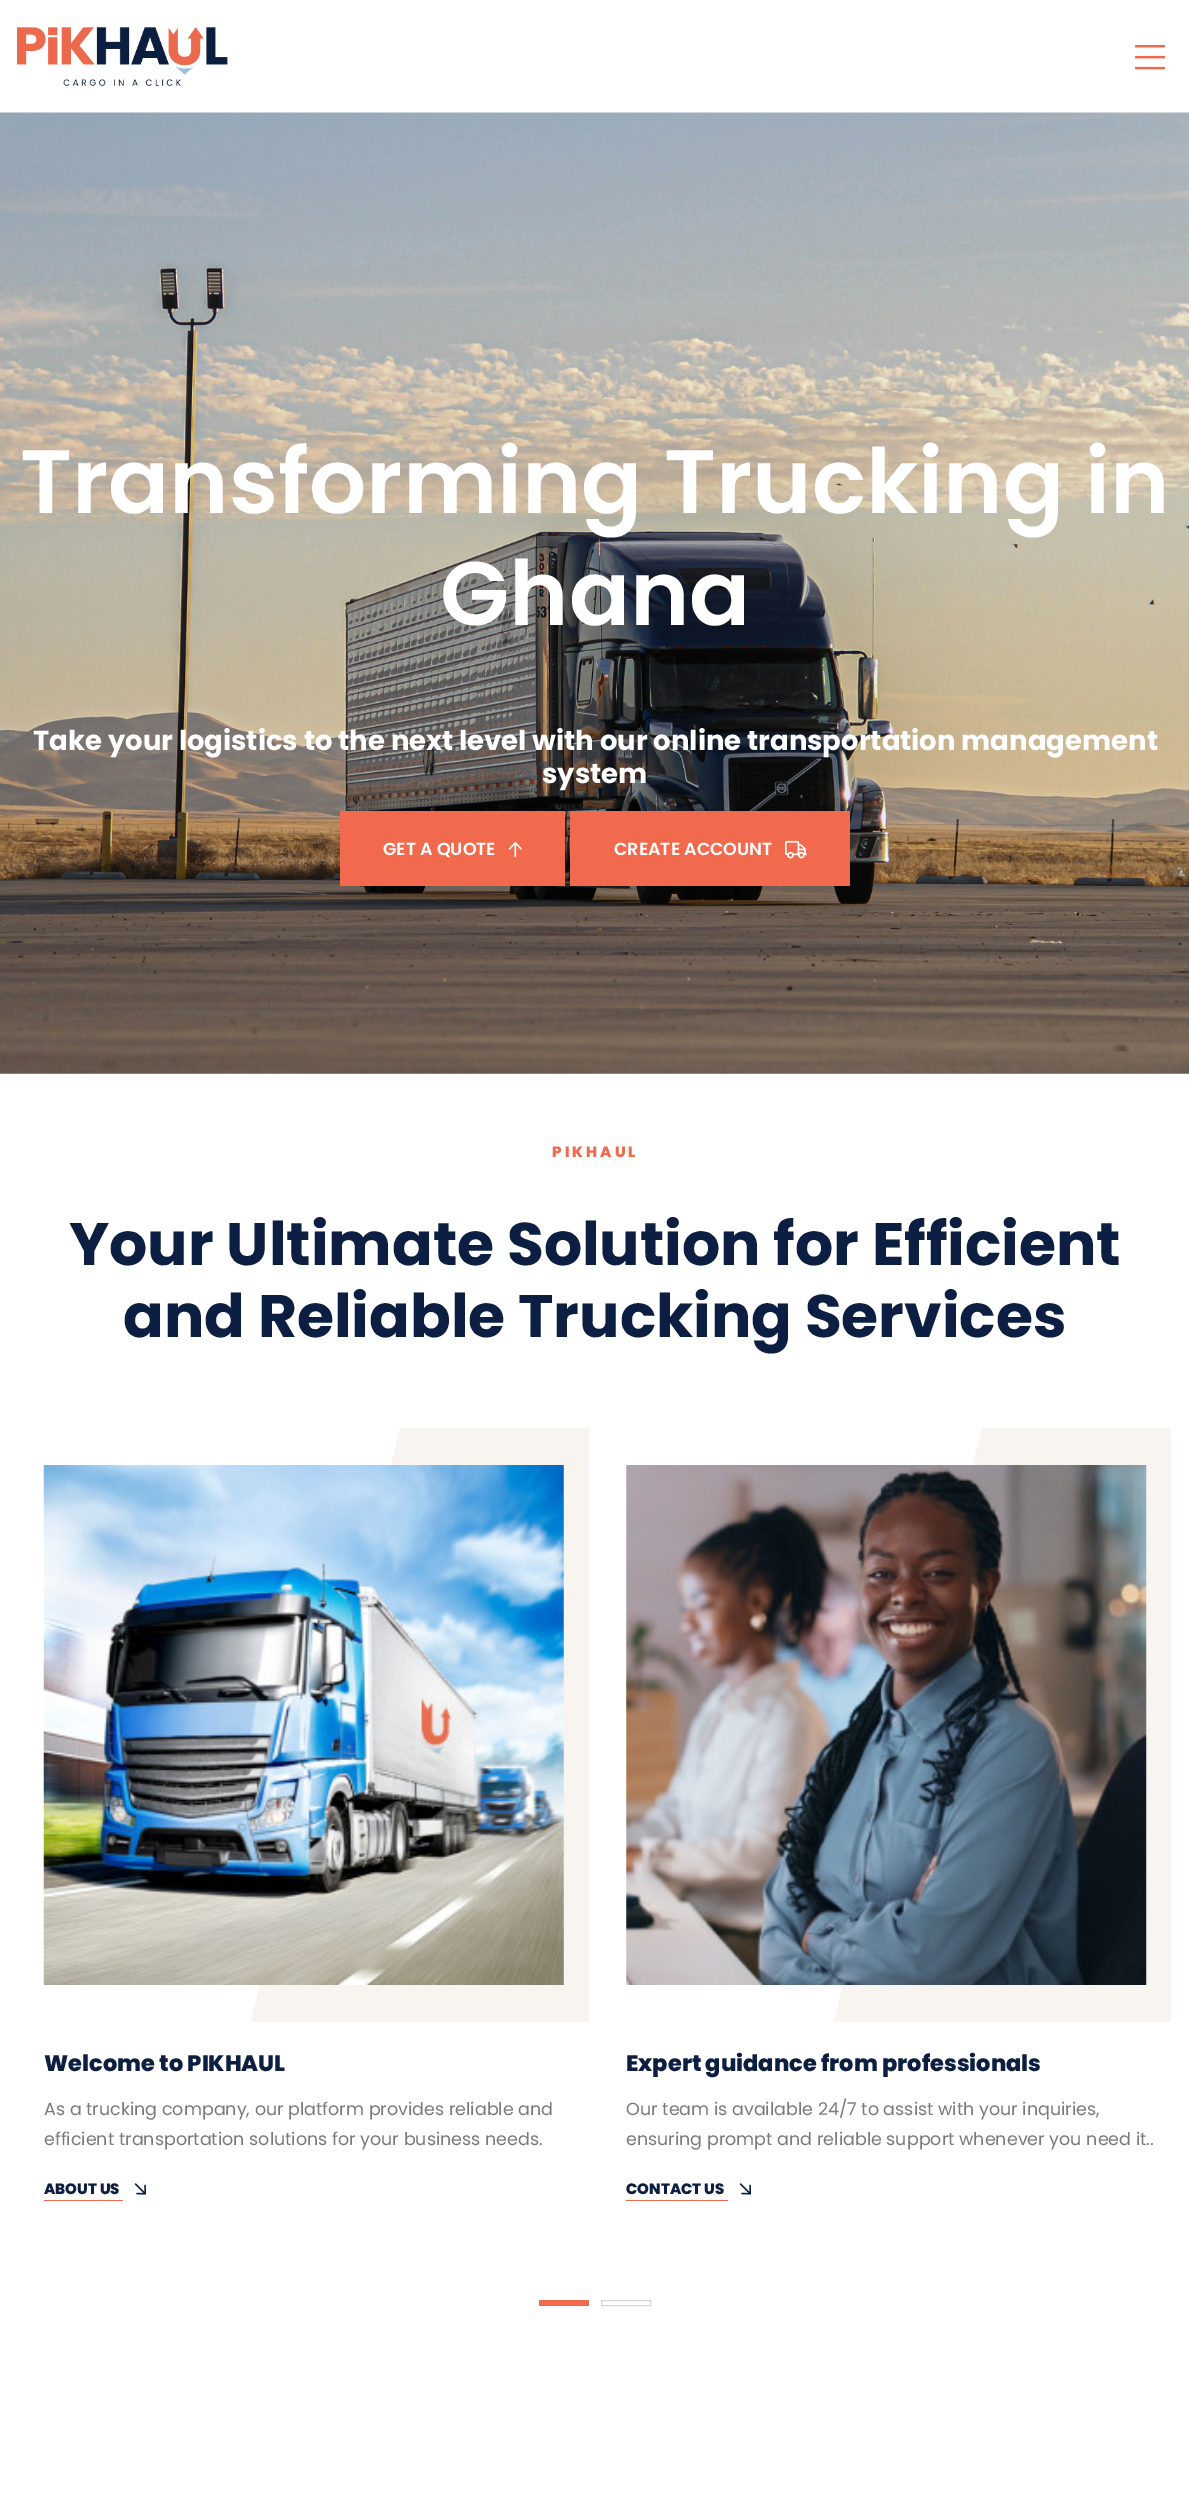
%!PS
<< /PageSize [1189 2510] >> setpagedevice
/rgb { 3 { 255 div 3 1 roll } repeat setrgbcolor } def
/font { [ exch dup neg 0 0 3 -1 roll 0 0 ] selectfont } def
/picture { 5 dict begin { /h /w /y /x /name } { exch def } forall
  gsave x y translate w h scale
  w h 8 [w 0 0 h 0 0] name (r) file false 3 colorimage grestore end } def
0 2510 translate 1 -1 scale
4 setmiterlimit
255 255 255 rgb
0 0 1189 2510 rectfill
(img/1.rgb) 17 27 211 59 picture
(img/2.rgb) 1135 45 30 25 picture
(img/3.rgb) 0 112 1189 962 picture
242 106 77 rgb
340 811 225 75 rectfill
(img/4.rgb) 508 842 14 16 picture
570 811 280 75 rectfill
(img/5.rgb) 785 840 22 19 picture
248 245 241 rgb
589 1428 moveto 589 2022 lineto 251 2022 lineto 400 1428 lineto closepath fill
(img/6.rgb) 43 1465 521 520 picture
(img/7.rgb) 134 2183 13 12 picture
242 106 77 rgb
44 2200 79 1 rectfill
248 245 241 rgb
834 2021 moveto 982 1428 lineto 1171 1428 lineto 1171 2022 lineto 834 2022 lineto closepath fill
(img/8.rgb) 626 1465 521 520 picture
(img/9.rgb) 739 2183 13 12 picture
242 106 77 rgb
626 2200 102 1 rectfill
539 2300 50 6 rectfill
215 215 215 rgb
601.5 2300.5 49 5 rectstroke
/Poppins-SemiBold 90 font
255 255 255 rgb
20 513 moveto (Transforming Trucking in) show
440 625 moveto (Ghana) show
/Poppins-Bold 27.5 font
33 750 moveto (Take your logistics to the next level with our online transportation management) show
542 783 moveto (system) show
/Poppins-SemiBold 17.5 font
383 855 moveto (GET A QUOTE) show
614 855 moveto (CREATE ACCOUNT) show
/Poppins-ExtraBold 15 font
242 106 77 rgb
552 1157 moveto 3 0 (PIKHAUL) ashow
/Poppins-Bold 60 font
12 30 65 rgb
69 1265 moveto (Your Ultimate Solution for Efficient) show
123 1337 moveto (and Reliable Trucking Services) show
/Poppins-ExtraBold 22.5 font
44 2071 moveto (Welcome to PIKHAUL) show
/Poppins-Regular 17.5 font
122 122 122 rgb
44 2115 moveto (As a trucking company, our platform provides reliable and) show
44 2145 moveto (efficient transportation solutions for your business needs.) show
/Poppins-ExtraBold 15 font
12 30 65 rgb
44 2194 moveto (ABOUT US) show
/Poppins-ExtraBold 22.5 font
626 2071 moveto (Expert guidance from professionals) show
/Poppins-Regular 17.5 font
122 122 122 rgb
626 2115 moveto (Our team is available 24/7 to assist with your inquiries,) show
626 2145 moveto (ensuring prompt and reliable support whenever you need it..) show
/Poppins-ExtraBold 15 font
12 30 65 rgb
626 2194 moveto (CONTACT US) show
showpage
